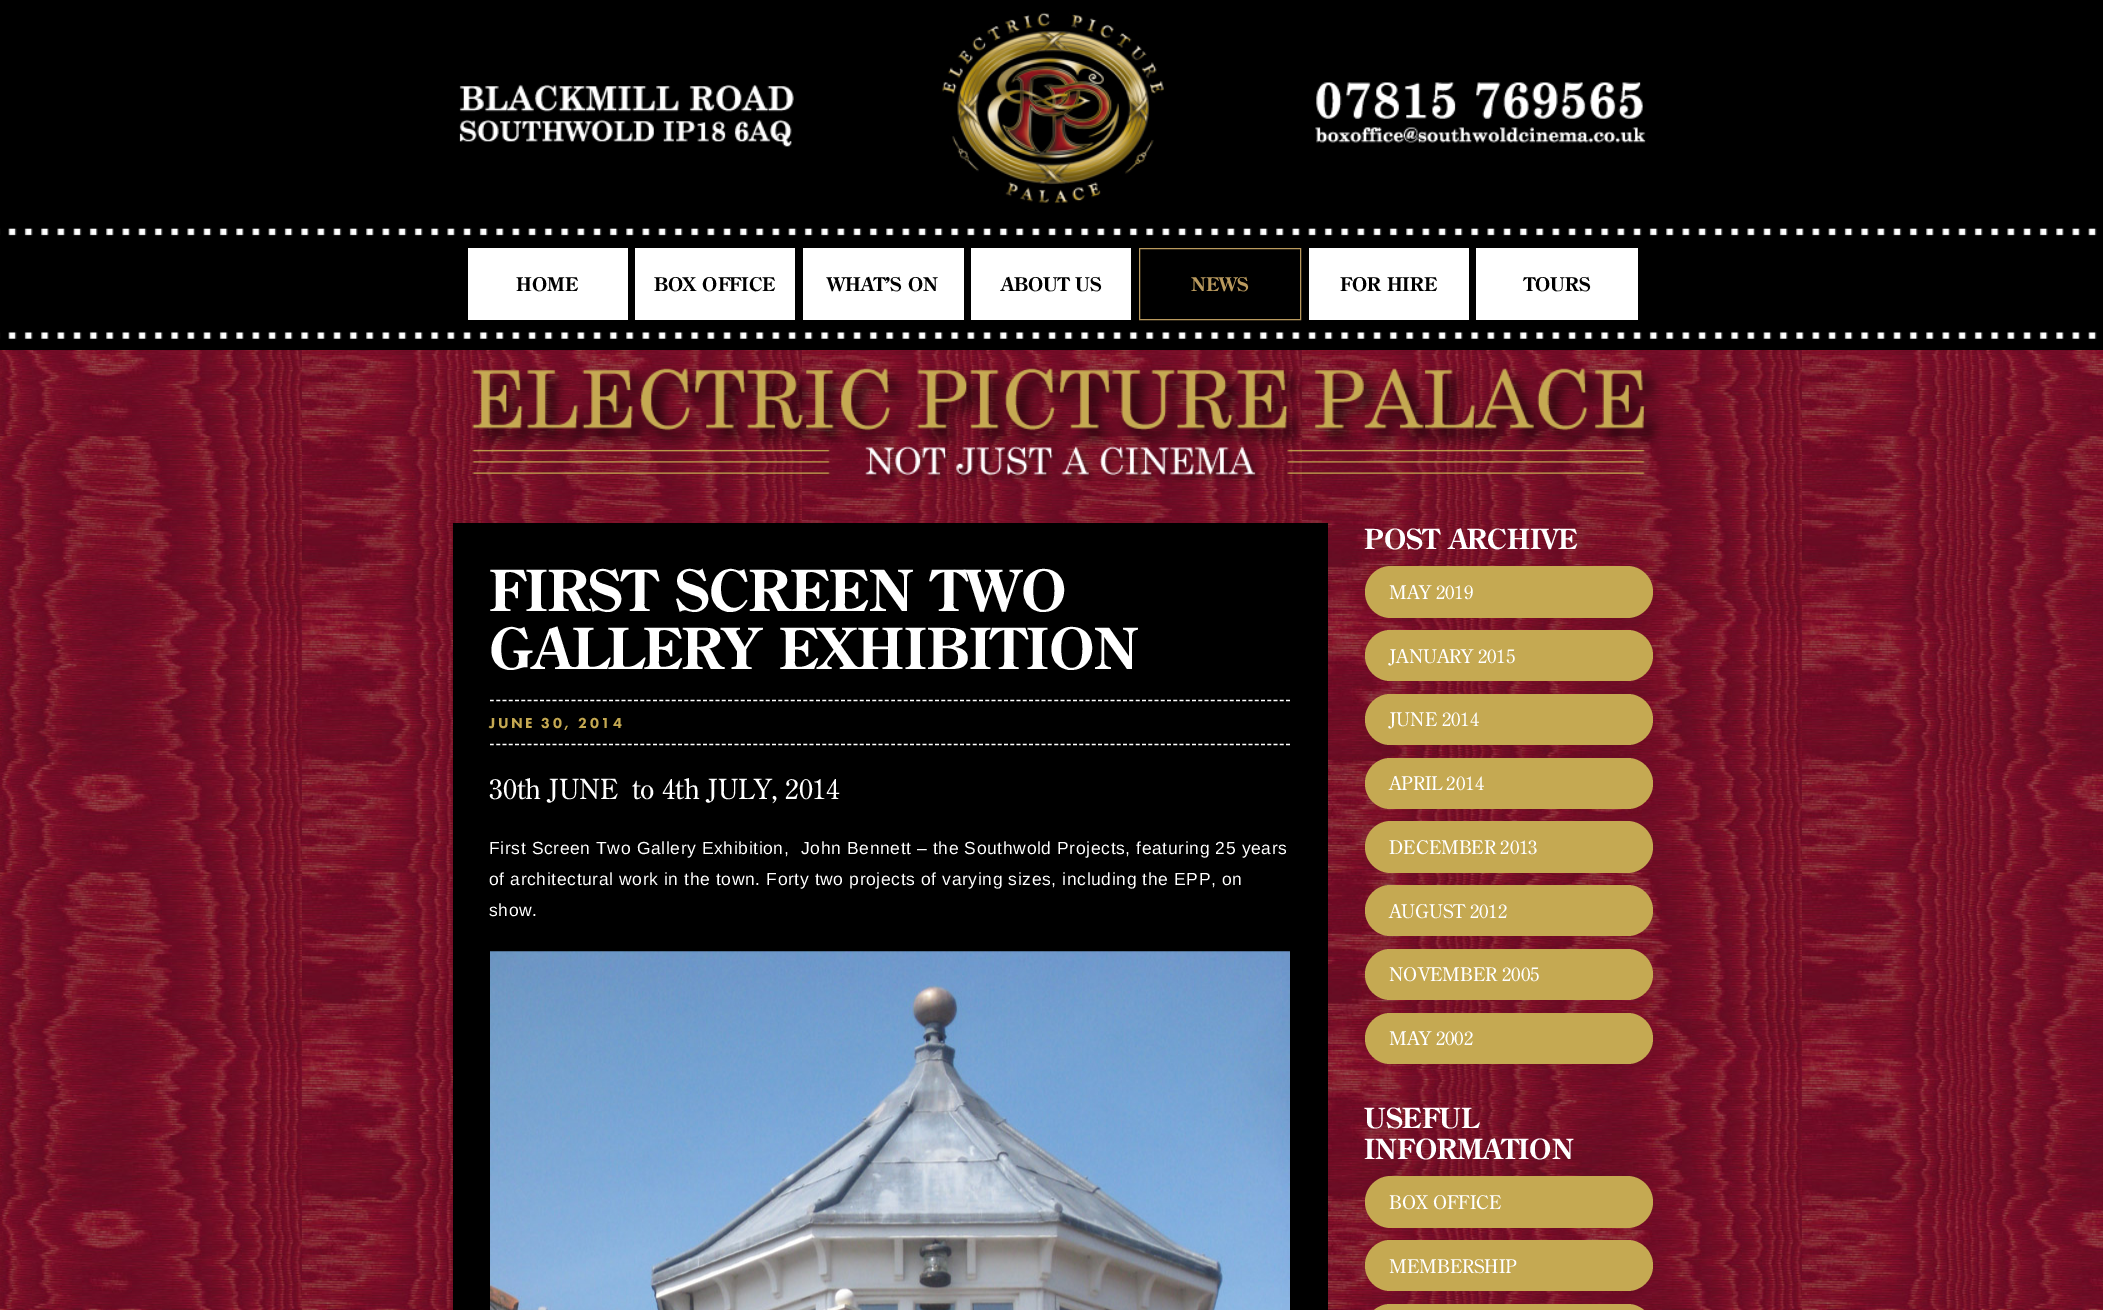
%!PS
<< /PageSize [2103 1310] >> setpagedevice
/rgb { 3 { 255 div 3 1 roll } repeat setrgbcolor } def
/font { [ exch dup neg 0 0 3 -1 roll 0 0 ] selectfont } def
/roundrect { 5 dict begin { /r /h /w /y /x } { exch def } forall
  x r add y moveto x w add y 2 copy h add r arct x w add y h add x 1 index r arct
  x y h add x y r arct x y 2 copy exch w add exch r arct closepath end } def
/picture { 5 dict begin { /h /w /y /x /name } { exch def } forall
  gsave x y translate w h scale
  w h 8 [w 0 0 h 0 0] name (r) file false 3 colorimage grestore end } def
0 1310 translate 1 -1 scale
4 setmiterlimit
255 255 255 rgb
0 0 2103 1310 rectfill
(img/1.rgb) 0 350 2103 960 picture
(img/2.rgb) 0 0 2103 350 picture
(img/3.rgb) 459 84 335 63 picture
(img/4.rgb) 941 12 223 192 picture
(img/5.rgb) 1315 82 331 61 picture
[
  [468 248 160 72 255 255 255]
  [635 248 160 72 255 255 255]
  [803 248 161 72 255 255 255]
  [971 248 160 72 255 255 255]
] { aload pop rgb rectfill } forall
186 154 94 rgb
1139.5 248.5 161 71 rectstroke
255 255 255 rgb
1309 248 160 72 rectfill
1476 248 162 72 rectfill
(img/6.rgb) 472 367 1191 116 picture
0 0 0 rgb
453 523 875 787 rectfill
255 255 255 rgb
1.2 setlinewidth
[3.75 2.52] 0 setdash
490 700.5 moveto 1290 700.5 lineto stroke
490 744.5 moveto 1290 744.5 lineto stroke
(img/7.rgb) 490 951 800 359 picture
197 169 82 rgb
1365 566 288 52 26 roundrect fill
1365 630 288 51 25.5 roundrect fill
1365 694 288 51 25.5 roundrect fill
1365 758 288 51 25.5 roundrect fill
1365 821 288 52 26 roundrect fill
1365 885 288 51 25.5 roundrect fill
1365 949 288 51 25.5 roundrect fill
1365 1013 288 51 25.5 roundrect fill
1365 1176 288 52 26 roundrect fill
1365 1240 288 51 25.5 roundrect fill
1365 1304 288 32 25.5 roundrect fill
/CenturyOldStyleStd-Bold 18.75 font
0 0 0 rgb
[
  [(HOME) 516 291]
  [(BOX OFFICE) 654 291]
  [(WHAT’S ON) 827 291]
  [(ABOUT US) 1001 291]
] { aload pop moveto show } forall
186 154 94 rgb
1191 291 moveto (NEWS) show
0 0 0 rgb
1340 291 moveto (FOR HIRE) show
1524 291 moveto (TOURS) show
/CenturyOldStyleStd-Bold 56.25 font
255 255 255 rgb
489 611 moveto (FIRST SCREEN TWO) show
489 669 moveto (GALLERY EXHIBITION) show
/FuturaPT-Black 15 font
197 169 82 rgb
489 728 moveto 2.5 0 (JUNE 30, 2014) ashow
/CenturyOldStyleStd-Regular 27.5 font
255 255 255 rgb
489 799 moveto (30th JUNE  to 4th JULY, 2014) show
/LiberationSans-Regular 17.5 font
489 854 moveto 0.62 0 (First Screen Two Gallery Exhibition,) ashow
801 854 moveto 0.62 0 (John Bennett – the Southwold Projects, featuring 25 years) ashow
489 885 moveto 0.62 0 (of architectural work in the town. Forty two projects of varying sizes, including the EPP, on) ashow
489 916 moveto 0.62 0 (show.) ashow
/CenturyOldStyleStd-Bold 27.5 font
1364 549 moveto (POST ARCHIVE) show
/CenturyOldStyleStd-Regular 18.75 font
[
  [(MAY 2019) 1389 599]
  [(JANUARY 2015) 1389 663]
  [(JUNE 2014) 1389 726]
  [(APRIL 2014) 1389 790]
  [(DECEMBER 2013) 1389 854]
  [(AUGUST 2012) 1389 918]
  [(NOVEMBER 2005) 1389 981]
  [(MAY 2002) 1389 1045]
] { aload pop moveto show } forall
/CenturyOldStyleStd-Bold 27.5 font
1364 1128 moveto (USEFUL) show
1364 1159 moveto (INFORMATION) show
/CenturyOldStyleStd-Regular 18.75 font
1389 1209 moveto (BOX OFFICE) show
1389 1273 moveto (MEMBERSHIP) show
showpage
